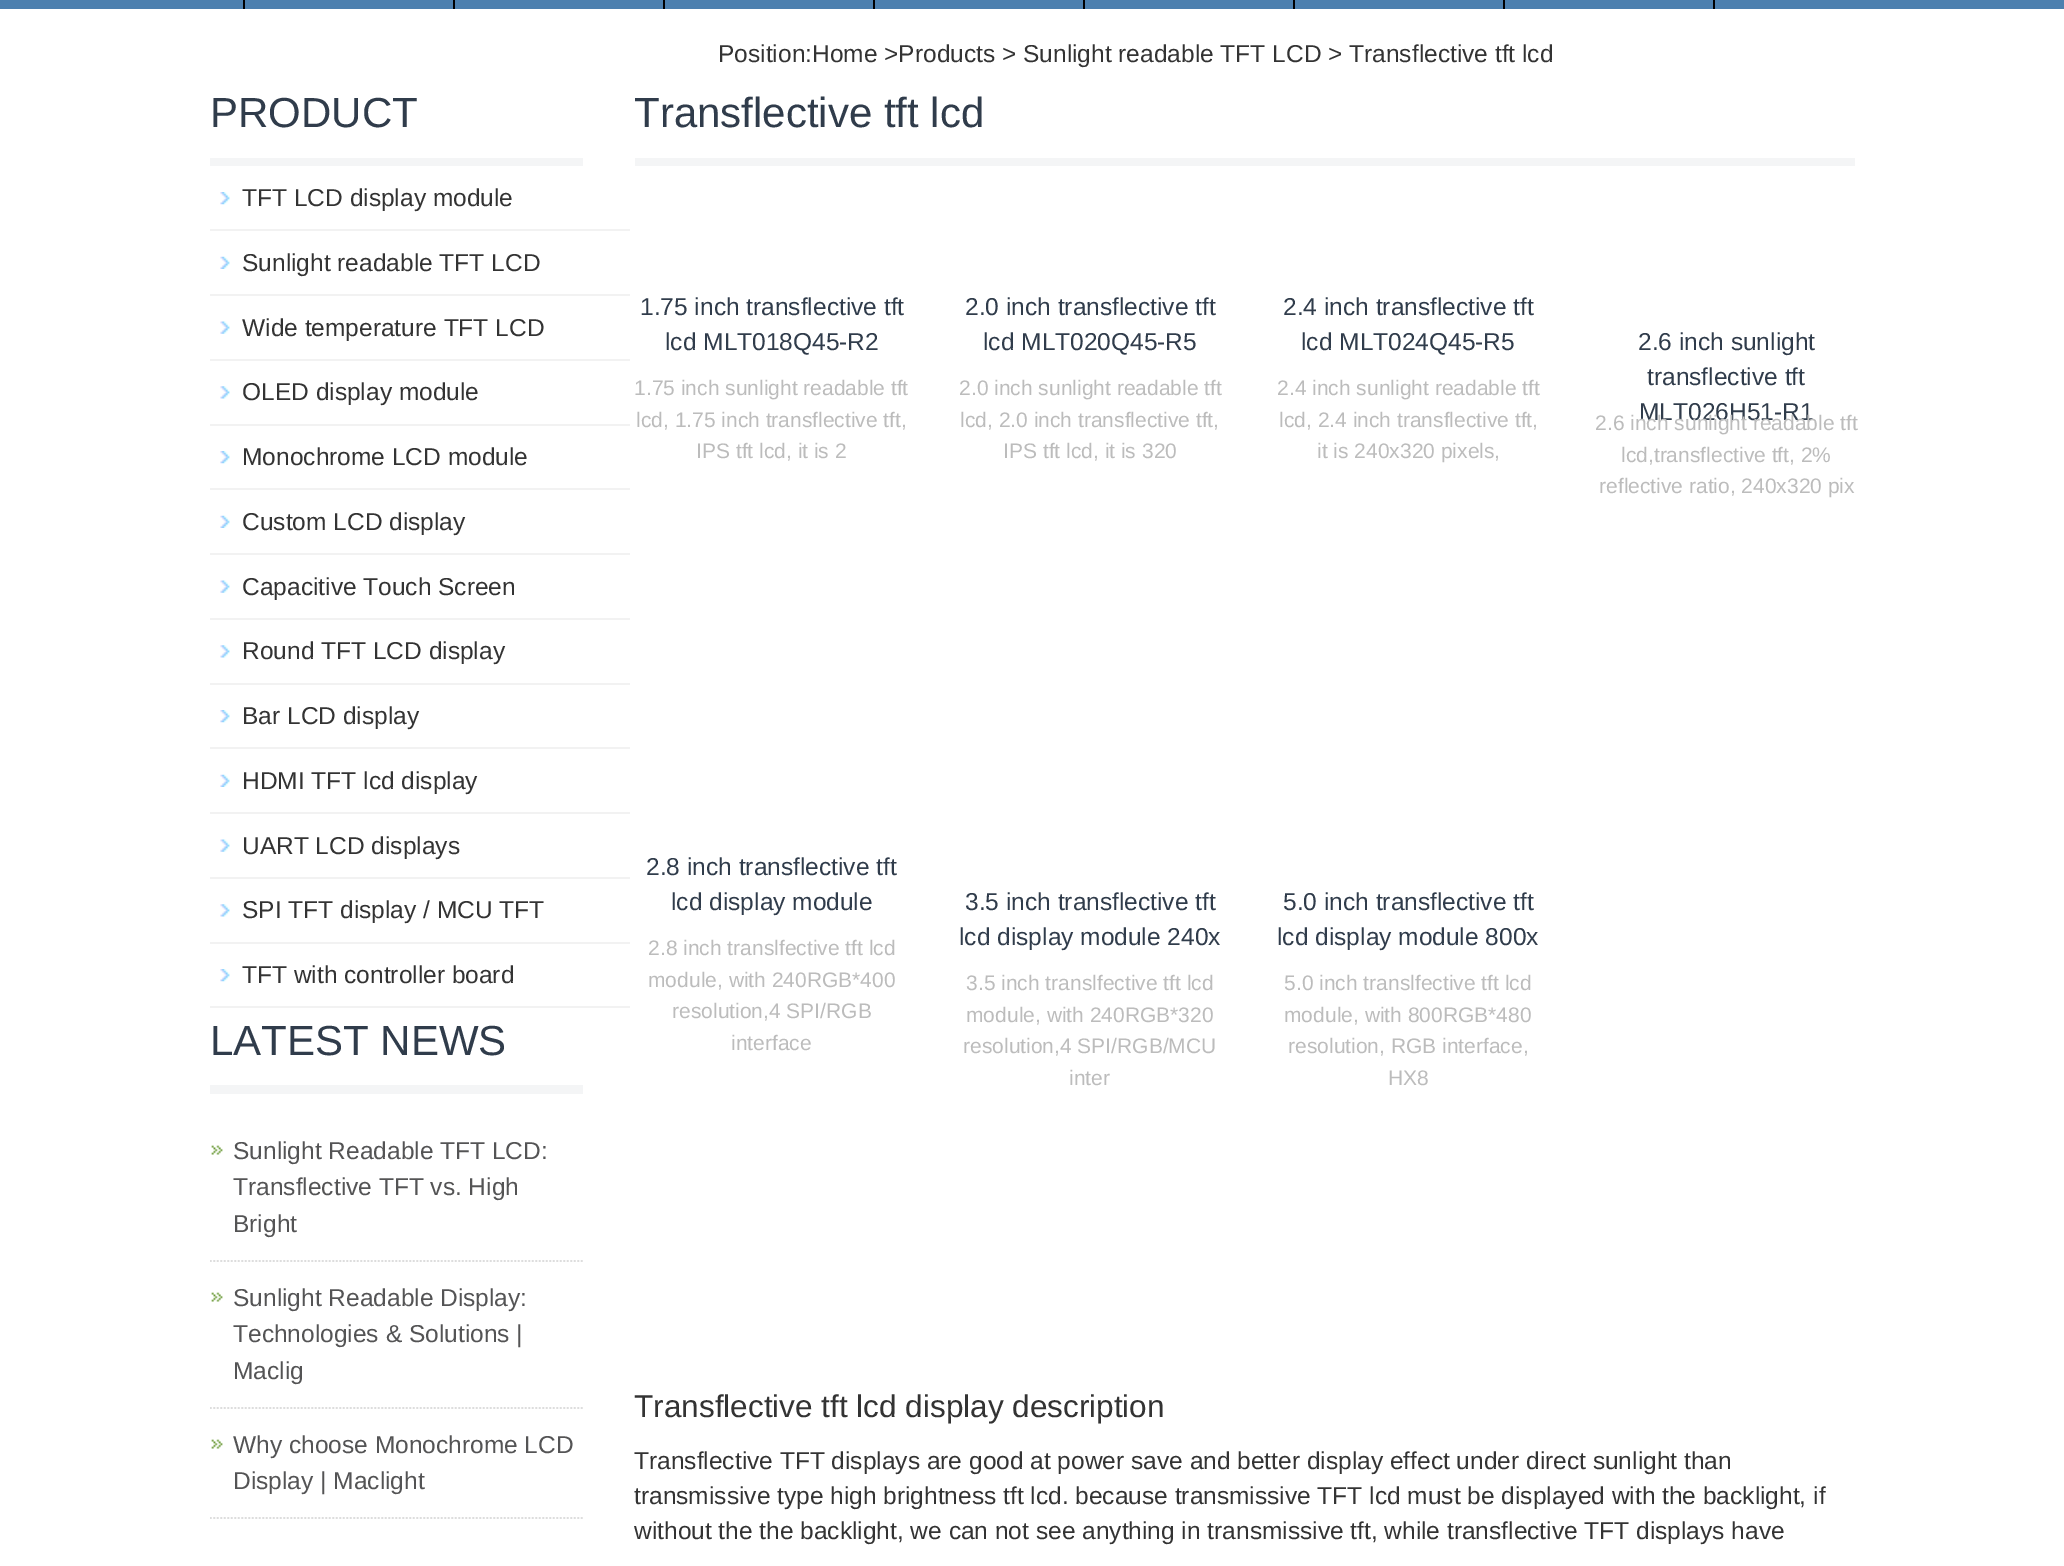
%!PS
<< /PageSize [2064 1566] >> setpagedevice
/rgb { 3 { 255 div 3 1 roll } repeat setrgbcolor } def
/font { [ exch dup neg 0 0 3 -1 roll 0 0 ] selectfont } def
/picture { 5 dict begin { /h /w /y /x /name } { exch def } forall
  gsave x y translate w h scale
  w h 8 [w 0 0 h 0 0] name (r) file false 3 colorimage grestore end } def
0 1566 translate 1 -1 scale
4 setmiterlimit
255 255 255 rgb
0 0 2064 1566 rectfill
[
  [0 0 2064 9 77 128 175]
  [243 0 2 9 0 0 0]
  [453 0 2 9 0 0 0]
  [663 0 2 9 0 0 0]
  [873 0 2 9 0 0 0]
  [1083 0 2 9 0 0 0]
  [1293 0 2 9 0 0 0]
  [1503 0 2 9 0 0 0]
  [1713 0 2 9 0 0 0]
  [210 158 373 8 244 245 246]
] { aload pop rgb rectfill } forall
(img/1.rgb) 220 192 10 13 picture
242 242 242 rgb
210 229 420 2 rectfill
(img/2.rgb) 220 256 10 13 picture
210 294 420 2 rectfill
(img/3.rgb) 220 321 10 13 picture
210 359 420 2 rectfill
(img/4.rgb) 220 386 10 13 picture
210 424 420 2 rectfill
(img/1.rgb) 220 451 10 13 picture
210 488 420 2 rectfill
(img/2.rgb) 220 515 10 13 picture
210 553 420 2 rectfill
(img/3.rgb) 220 580 10 13 picture
210 618 420 2 rectfill
(img/4.rgb) 220 645 10 13 picture
210 683 420 2 rectfill
(img/1.rgb) 220 710 10 13 picture
210 747 420 2 rectfill
(img/2.rgb) 220 774 10 13 picture
210 812 420 2 rectfill
(img/3.rgb) 220 839 10 13 picture
210 877 420 2 rectfill
(img/4.rgb) 220 904 10 13 picture
210 942 420 2 rectfill
(img/1.rgb) 220 969 10 13 picture
210 1006 420 2 rectfill
244 245 246 rgb
210 1085 373 9 rectfill
(img/5.rgb) 211 1145 12 10 picture
221 221 221 rgb
1.8 setlinewidth
[1.75 1.75] 0 setdash
210 1261 moveto 583 1261 lineto stroke
(img/5.rgb) 211 1292 12 10 picture
210 1408 moveto 583 1408 lineto stroke
(img/5.rgb) 211 1439 12 10 picture
210 1518 moveto 583 1518 lineto stroke
244 245 246 rgb
635 158 1220 8 rectfill
/LiberationSans-Regular 24.5 font
51 51 51 rgb
718 62 moveto (Position:Home >Products > Sunlight readable TFT LCD > Transflective tft lcd) show
/LiberationSans-Regular 42 font
48 60 75 rgb
210 127 moveto (PRODUCT) show
/LiberationSans-Regular 24.5 font
51 51 51 rgb
[
  [(TFT LCD display module) 242 206]
  [(Sunlight readable TFT LCD) 242 271]
  [(Wide temperature TFT LCD) 242 336]
  [(OLED display module) 242 400]
  [(Monochrome LCD module) 242 465]
  [(Custom LCD display) 242 530]
  [(Capacitive Touch Screen) 242 595]
  [(Round TFT LCD display) 242 659]
  [(Bar LCD display) 242 724]
  [(HDMI TFT lcd display) 242 789]
  [(UART LCD displays) 242 854]
  [(SPI TFT display / MCU TFT) 242 918]
  [(TFT with controller board) 242 983]
] { aload pop moveto show } forall
/LiberationSans-Regular 42 font
48 60 75 rgb
210 1055 moveto (LATEST NEWS) show
/LiberationSans-Regular 24.5 font
84 84 85 rgb
[
  [(Sunlight Readable TFT LCD:) 233 1159]
  [(Transflective TFT vs. High) 233 1195]
  [(Bright) 233 1232]
  [(Sunlight Readable Display:) 233 1306]
  [(Technologies & Solutions |) 233 1342]
  [(Maclig) 233 1379]
  [(Why choose Monochrome LCD) 233 1453]
  [(Display | Maclight) 233 1489]
] { aload pop moveto show } forall
/LiberationSans-Regular 42 font
48 60 75 rgb
634 127 moveto (Transflective tft lcd) show
/LiberationSans-Regular 24.5 font
640 315 moveto (1.75 inch transflective tft) show
665 350 moveto (lcd MLT018Q45-R2) show
/LiberationSans-Regular 21 font
188 188 188 rgb
[
  [(1.75 inch sunlight readable tft) 634 395]
  [(lcd, 1.75 inch transflective tft,) 636 427]
  [(IPS tft lcd, it is 2) 696 458]
] { aload pop moveto show } forall
/LiberationSans-Regular 24.5 font
48 60 75 rgb
965 315 moveto (2.0 inch transflective tft) show
983 350 moveto (lcd MLT020Q45-R5) show
/LiberationSans-Regular 21 font
188 188 188 rgb
[
  [(2.0 inch sunlight readable tft) 959 395]
  [(lcd, 2.0 inch transflective tft,) 960 427]
  [(IPS tft lcd, it is 320) 1003 458]
] { aload pop moveto show } forall
/LiberationSans-Regular 24.5 font
48 60 75 rgb
1283 315 moveto (2.4 inch transflective tft) show
1301 350 moveto (lcd MLT024Q45-R5) show
/LiberationSans-Regular 21 font
188 188 188 rgb
[
  [(2.4 inch sunlight readable tft) 1277 395]
  [(lcd, 2.4 inch transflective tft,) 1279 427]
  [(it is 240x320 pixels,) 1317 458]
] { aload pop moveto show } forall
/LiberationSans-Regular 24.5 font
48 60 75 rgb
[
  [(2.6 inch sunlight) 1638 350]
  [(transflective tft) 1647 385]
  [(MLT026H51-R1) 1639 420]
] { aload pop moveto show } forall
/LiberationSans-Regular 21 font
188 188 188 rgb
[
  [(2.6 inch sunlight readable tft) 1595 430]
  [(lcd,transflective tft, 2%) 1621 462]
  [(reflective ratio, 240x320 pix) 1599 493]
] { aload pop moveto show } forall
/LiberationSans-Regular 24.5 font
48 60 75 rgb
646 875 moveto (2.8 inch transflective tft) show
671 910 moveto (lcd display module) show
/LiberationSans-Regular 21 font
188 188 188 rgb
[
  [(2.8 inch translfective tft lcd) 648 955]
  [(module, with 240RGB*400) 648 987]
  [(resolution,4 SPI/RGB) 672 1018]
  [(interface) 731 1050]
] { aload pop moveto show } forall
/LiberationSans-Regular 24.5 font
48 60 75 rgb
965 910 moveto (3.5 inch transflective tft) show
959 945 moveto (lcd display module 240x) show
/LiberationSans-Regular 21 font
188 188 188 rgb
[
  [(3.5 inch translfective tft lcd) 966 990]
  [(module, with 240RGB*320) 966 1022]
  [(resolution,4 SPI/RGB/MCU) 963 1053]
  [(inter) 1069 1085]
] { aload pop moveto show } forall
/LiberationSans-Regular 24.5 font
48 60 75 rgb
1283 910 moveto (5.0 inch transflective tft) show
1277 945 moveto (lcd display module 800x) show
/LiberationSans-Regular 21 font
188 188 188 rgb
[
  [(5.0 inch translfective tft lcd) 1284 990]
  [(module, with 800RGB*480) 1284 1022]
  [(resolution, RGB interface,) 1288 1053]
  [(HX8) 1388 1085]
] { aload pop moveto show } forall
/LiberationSans-Regular 31.5 font
51 51 51 rgb
634 1417 moveto (Transflective tft lcd display description) show
/LiberationSans-Regular 24.5 font
[
  [(Transflective TFT displays are good at power save and better display effect under direct sunlight than) 634 1469]
  [(transmissive type high brightness tft lcd. because transmissive TFT lcd must be displayed with the backlight, if) 634 1504]
  [(without the the backlight, we can not see anything in transmissive tft, while transflective TFT displays have) 634 1539]
] { aload pop moveto show } forall
showpage
